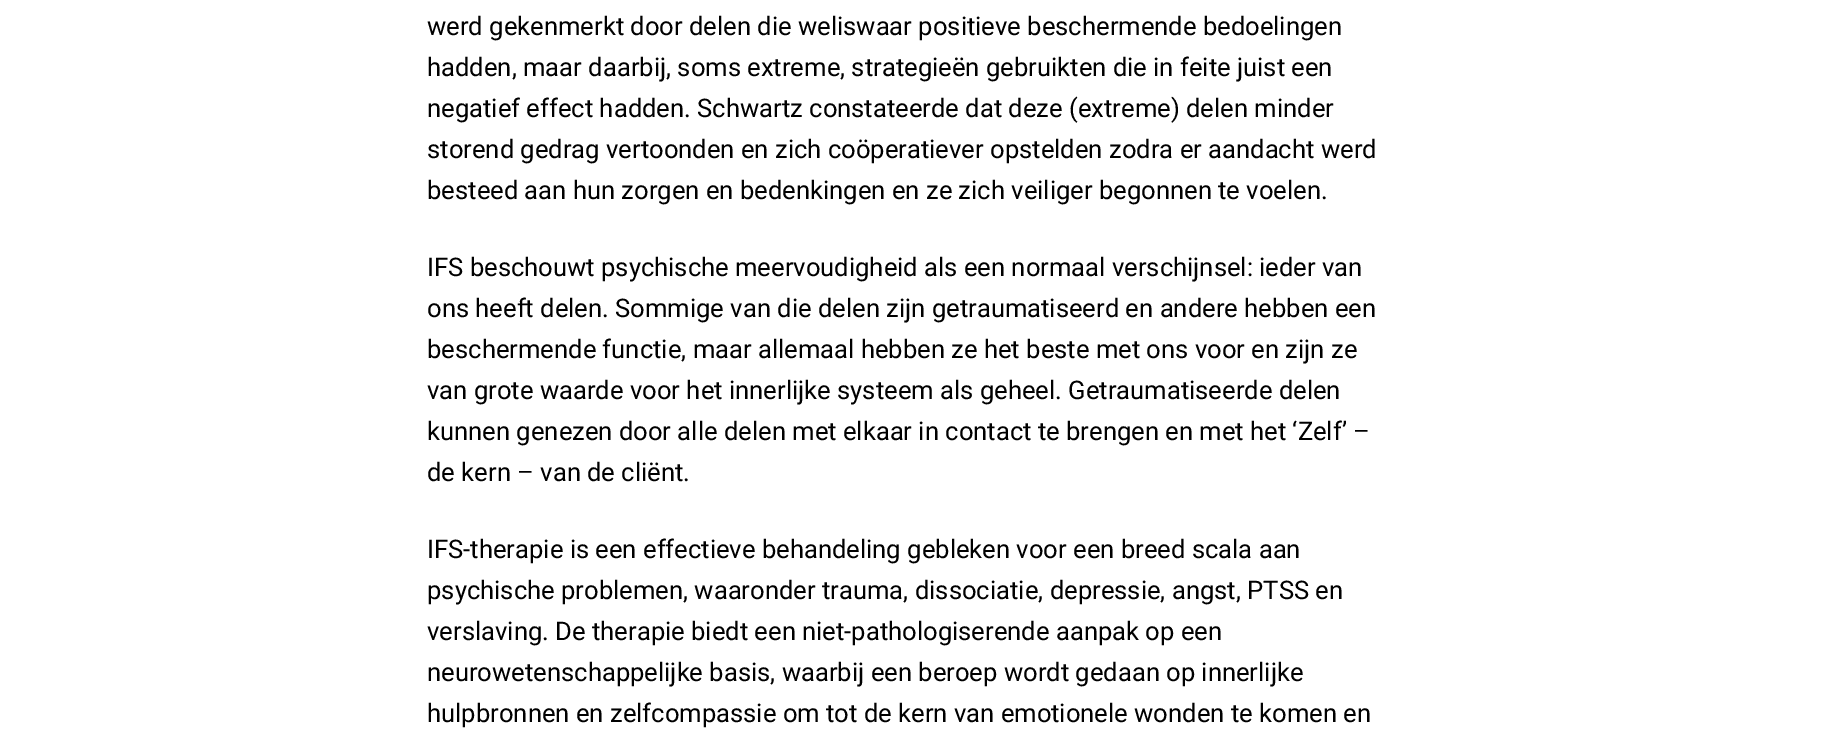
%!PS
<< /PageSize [1828 751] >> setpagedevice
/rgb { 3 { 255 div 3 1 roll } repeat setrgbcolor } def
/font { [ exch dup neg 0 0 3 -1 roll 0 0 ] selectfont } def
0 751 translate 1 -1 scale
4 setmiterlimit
255 255 255 rgb
0 0 1828 751 rectfill
/Roboto-Regular 25.6 font
0 0 0 rgb
[
  [(werd gekenmerkt door delen die weliswaar positieve beschermende bedoelingen) 427 35]
  [(hadden, maar daarbij, soms extreme, strategieën gebruikten die in feite juist een) 427 76]
  [(negatief effect hadden. Schwartz constateerde dat deze \(extreme\) delen minder) 427 117]
  [(storend gedrag vertoonden en zich coöperatiever opstelden zodra er aandacht werd) 427 158]
  [(besteed aan hun zorgen en bedenkingen en ze zich veiliger begonnen te voelen.) 427 199]
  [(IFS beschouwt psychische meervoudigheid als een normaal verschijnsel: ieder van) 427 276]
  [(ons heeft delen. Sommige van die delen zijn getraumatiseerd en andere hebben een) 427 317]
  [(beschermende functie, maar allemaal hebben ze het beste met ons voor en zijn ze) 427 358]
  [(van grote waarde voor het innerlijke systeem als geheel. Getraumatiseerde delen) 427 399]
  [(kunnen genezen door alle delen met elkaar in contact te brengen en met het ‘Zelf’ –) 427 440]
  [(de kern – van de cliënt.) 427 481]
  [(IFS-therapie is een effectieve behandeling gebleken voor een breed scala aan) 427 558]
  [(psychische problemen, waaronder trauma, dissociatie, depressie, angst, PTSS en) 427 599]
  [(verslaving. De therapie biedt een niet-pathologiserende aanpak op een) 427 640]
  [(neurowetenschappelijke basis, waarbij een beroep wordt gedaan op innerlijke) 427 681]
  [(hulpbronnen en zelfcompassie om tot de kern van emotionele wonden te komen en) 427 722]
] { aload pop moveto show } forall
showpage
